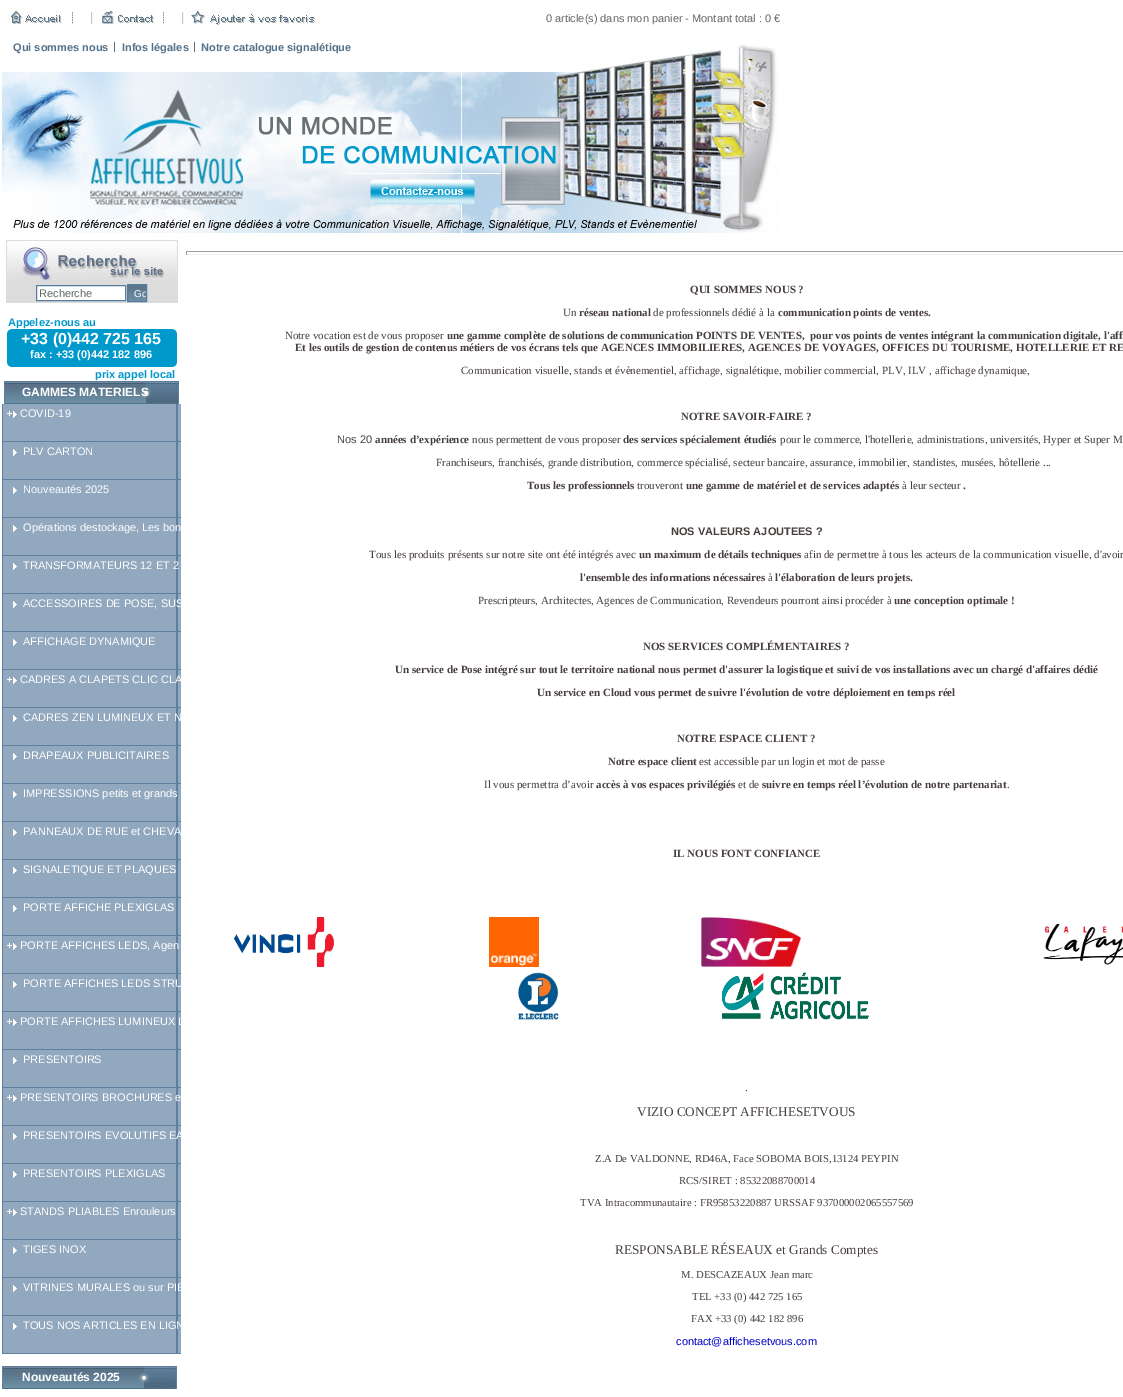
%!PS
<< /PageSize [1123 1397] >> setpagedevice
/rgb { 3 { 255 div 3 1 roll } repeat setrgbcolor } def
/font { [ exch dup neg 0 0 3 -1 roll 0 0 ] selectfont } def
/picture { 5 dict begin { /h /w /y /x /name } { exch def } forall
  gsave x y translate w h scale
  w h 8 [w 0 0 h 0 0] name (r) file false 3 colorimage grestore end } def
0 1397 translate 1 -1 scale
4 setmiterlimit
255 255 255 rgb
0 0 1123 1397 rectfill
(img/1.rgb) 8 8 65 16 picture
(img/2.rgb) 91 8 73 17 picture
(img/3.rgb) 182 8 136 17 picture
(img/4.rgb) 0 44 778 196 picture
[
  [114 42 1 10 84 114 138]
  [194 42 1 10 84 114 138]
  [6 240 172 63 220 220 220]
] { aload pop rgb rectfill } forall
(img/5.rgb) 7 241 170 40 picture
255 255 255 rgb
36.5 285.5 moveto 125.5 285.5 lineto 125.5 300.5 lineto 36.5 300.5 lineto closepath gsave fill grestore
88 124 158 rgb
stroke
(img/6.rgb) 128 285 18 16 picture
127.5 284.5 19 17 rectstroke
(img/7.rgb) 7 329 170 38 picture
(img/8.rgb) 4 381 175 23 picture
(img/9.rgb) 2 404 179 949 picture
(img/10.rgb) 13 411 4 7 picture
93 128 161 rgb
2 441 179 1 rectfill
(img/11.rgb) 7 411 5 5 picture
(img/10.rgb) 13 449 4 7 picture
2 479 179 1 rectfill
(img/10.rgb) 13 487 4 7 picture
2 517 179 1 rectfill
(img/10.rgb) 13 525 4 7 picture
2 555 179 1 rectfill
(img/10.rgb) 13 563 4 7 picture
2 593 179 1 rectfill
(img/10.rgb) 13 601 4 7 picture
2 631 179 1 rectfill
(img/10.rgb) 13 639 4 7 picture
2 669 179 1 rectfill
(img/10.rgb) 13 677 4 7 picture
2 707 179 1 rectfill
(img/11.rgb) 7 677 5 5 picture
(img/10.rgb) 13 715 4 7 picture
2 745 179 1 rectfill
(img/10.rgb) 13 753 4 7 picture
2 783 179 1 rectfill
(img/10.rgb) 13 791 4 7 picture
2 821 179 1 rectfill
(img/10.rgb) 13 829 4 7 picture
2 859 179 1 rectfill
(img/10.rgb) 13 867 4 7 picture
2 897 179 1 rectfill
(img/10.rgb) 13 905 4 7 picture
2 935 179 1 rectfill
(img/10.rgb) 13 943 4 7 picture
2 973 179 1 rectfill
(img/11.rgb) 7 943 5 5 picture
(img/10.rgb) 13 981 4 7 picture
2 1011 179 1 rectfill
(img/10.rgb) 13 1019 4 7 picture
2 1049 179 1 rectfill
(img/11.rgb) 7 1019 5 5 picture
(img/10.rgb) 13 1057 4 7 picture
2 1087 179 1 rectfill
(img/10.rgb) 13 1095 4 7 picture
2 1125 179 1 rectfill
(img/11.rgb) 7 1095 5 5 picture
(img/10.rgb) 13 1133 4 7 picture
2 1163 179 1 rectfill
(img/10.rgb) 13 1171 4 7 picture
2 1201 179 1 rectfill
(img/10.rgb) 13 1209 4 7 picture
2 1239 179 1 rectfill
(img/11.rgb) 7 1209 5 5 picture
(img/10.rgb) 13 1247 4 7 picture
2 1277 179 1 rectfill
(img/10.rgb) 13 1285 4 7 picture
2 1315 179 1 rectfill
(img/10.rgb) 13 1323 4 7 picture
2 1353 179 1 rectfill
(img/8.rgb) 2 1366 175 23 picture
[
  [186 251 937 1 159 159 159]
  [186 254 937 1 238 238 238]
  [186 251 1 4 159 159 159]
] { aload pop rgb rectfill } forall
(img/12.rgb) 234 917 100 50 picture
(img/13.rgb) 489 917 50 50 picture
(img/14.rgb) 701 917 100 50 picture
(img/15.rgb) 1043 923 80 42 picture
(img/16.rgb) 518 972 41 48 picture
(img/17.rgb) 721 972 148 48 picture
/LiberationSans-Regular 11 font
102 102 102 rgb
546 22 moveto (0 article\(s\) dans mon panier - Montant total : 0 €) show
/LiberationSans-Bold 11 font
84 114 138 rgb
[
  [(Qui sommes nous) 13 51]
  [(Infos légales) 122 51]
  [(Notre catalogue signalétique) 201 51]
] { aload pop moveto show } forall
/LiberationSans-Regular 11 font
96 103 103 rgb
39 297 moveto (Recherche) show
gsave
128 285 18 16 rectclip
/LiberationSans-Regular 10 font
255 255 255 rgb
134 297 moveto (Go) show
grestore
/LiberationSans-Bold 11 font
0 153 204 rgb
8 326 moveto (Appelez-nous au) show
/LiberationSans-Bold 16 font
255 255 255 rgb
21 344 moveto (+33 \(0\)442 725 165) show
/LiberationSans-Bold 11 font
30 358 moveto (fax : +33 \(0\)442 182 896) show
0 153 204 rgb
95 378 moveto (prix appel local) show
/LiberationSans-Bold 12 font
255 255 255 rgb
22 396 moveto (GAMMES MATERIELS) show
/LiberationSans-Regular 11 font
[
  [(COVID-19) 20 417]
  [(PLV CARTON) 23 455]
  [(Nouveautés 2025) 23 493]
  [(Opérations destockage, Les bon) 23 531]
  [(TRANSFORMATEURS 12 ET 2) 23 569]
  [(ACCESSOIRES DE POSE, SUS) 23 607]
  [(AFFICHAGE DYNAMIQUE) 23 645]
  [(CADRES A CLAPETS CLIC CLA) 20 683]
  [(CADRES ZEN LUMINEUX ET N) 23 721]
  [(DRAPEAUX PUBLICITAIRES) 23 759]
  [(IMPRESSIONS petits et grands) 23 797]
  [(PANNEAUX DE RUE et CHEVA) 23 835]
  [(SIGNALETIQUE ET PLAQUES) 23 873]
  [(PORTE AFFICHE PLEXIGLAS) 23 911]
  [(PORTE AFFICHES LEDS, Agen) 20 949]
  [(PORTE AFFICHES LEDS STRU) 23 987]
  [(PORTE AFFICHES LUMINEUX L) 20 1025]
  [(PRESENTOIRS) 23 1063]
  [(PRESENTOIRS BROCHURES e) 20 1101]
  [(PRESENTOIRS EVOLUTIFS EA) 23 1139]
  [(PRESENTOIRS PLEXIGLAS) 23 1177]
  [(STANDS PLIABLES Enrouleurs) 20 1215]
  [(TIGES INOX) 23 1253]
  [(VITRINES MURALES ou sur PIE) 23 1291]
  [(TOUS NOS ARTICLES EN LIGN) 23 1329]
] { aload pop moveto show } forall
/LiberationSans-Bold 12 font
22 1381 moveto (Nouveautés 2025) show
/LiberationSerif-Bold 11 font
70 63 61 rgb
690 293 moveto (QUI SOMMES NOUS ?) show
/LiberationSerif-Regular 11 font
563 316 moveto (Un) show
/LiberationSerif-Bold 11 font
579 316 moveto (réseau national) show
/LiberationSerif-Regular 11 font
653 316 moveto (de professionnels dédié à la) show
/LiberationSerif-Bold 11 font
778 316 moveto (communication points de ventes.) show
/LiberationSerif-Regular 11 font
285 339 moveto (Notre vocation est de vous proposer) show
/LiberationSerif-Bold 11 font
447 339 moveto (une gamme complète de solutions de communication POINTS DE VENTES,  pour vos points de ventes intégrant la communication digitale, l'aff) show
295 351 moveto (Et les outils de gestion de contenus métiers de vos écrans tels que AGENCES IMMOBILIERES, AGENCES DE VOYAGES, OFFICES DU TOURISME, HOTELLERIE ET RE) show
/LiberationSerif-Regular 11 font
461 374 moveto (Communication visuelle, stands et évènementiel, affichage, signalétique, mobilier commercial, PLV, ILV , affichage dynamique,) show
/LiberationSerif-Bold 11 font
681 420 moveto (NOTRE SAVOIR-FAIRE ?) show
/LiberationSans-Regular 11 font
337 443 moveto (Nos 20) show
/LiberationSerif-Bold 11 font
375 443 moveto (années d’expérience) show
/LiberationSerif-Regular 11 font
472 443 moveto (nous permettent de vous proposer) show
/LiberationSerif-Bold 11 font
623 443 moveto (des services spécialement étudiés) show
/LiberationSerif-Regular 11 font
780 443 moveto (pour le commerce, l'hotellerie, administrations, universités, Hyper et Super M) show
436 466 moveto (Franchiseurs, franchisés, grande distribution, commerce spécialisé, secteur bancaire, assurance, immobilier, standistes, musées, hôtellerie ...) show
/LiberationSerif-Bold 11 font
527 489 moveto (Tous les professionnels) show
/LiberationSerif-Regular 11 font
637 489 moveto (trouveront) show
/LiberationSerif-Bold 11 font
686 489 moveto (une gamme de matériel et de services adaptés) show
/LiberationSerif-Regular 11 font
902 489 moveto (à leur secteur) show
/LiberationSerif-Bold 11 font
963 489 moveto (.) show
/LiberationSans-Bold 11 font
671 535 moveto (NOS VALEURS AJOUTEES ?) show
/LiberationSerif-Regular 11 font
369 558 moveto (Tous les produits présents sur notre site ont été intégrés avec) show
/LiberationSerif-Bold 11 font
639 558 moveto (un maximum de détails techniques) show
/LiberationSerif-Regular 11 font
804 558 moveto (afin de permettre à tous les acteurs de la communication visuelle, d'avoir) show
/LiberationSerif-Bold 11 font
580 581 moveto (l'ensemble des informations nécessaires) show
/LiberationSerif-Regular 11 font
768 581 moveto (à) show
/LiberationSerif-Bold 11 font
775 581 moveto (l'élaboration de leurs projets.) show
/LiberationSerif-Regular 11 font
478 604 moveto (Prescripteurs, Architectes, Agences de Communication, Revendeurs pourront ainsi procéder à) show
/LiberationSerif-Bold 11 font
[
  [(une conception optimale !) 894 604]
  [(NOS SERVICES COMPLÉMENTAIRES ?) 643 650]
  [(Un service de Pose intégré sur tout le territoire national nous permet d'assurer la logistique et suivi de vos installations avec un chargé d'affaires dédié) 395 673]
  [(Un service en Cloud vous permet de suivre l'évolution de votre déploiement en temps réel) 537 696]
  [(NOTRE ESPACE CLIENT ?) 677 742]
  [(Notre espace client) 608 765]
] { aload pop moveto show } forall
/LiberationSerif-Regular 11 font
699 765 moveto (est accessible par un login et mot de passe) show
484 788 moveto (Il vous permettra d’avoir) show
/LiberationSerif-Bold 11 font
596 788 moveto (accès à vos espaces privilégiés) show
/LiberationSerif-Regular 11 font
738 788 moveto (et de) show
/LiberationSerif-Bold 11 font
762 788 moveto (suivre en temps réel l’évolution de notre partenariat) show
/LiberationSerif-Regular 11 font
1007 788 moveto (.) show
/LiberationSerif-Bold 11 font
673 857 moveto (IL NOUS FONT CONFIANCE) show
/LiberationSerif-Regular 11 font
745 1091 moveto (.) show
/LiberationSerif-Regular 13.3 font
637 1116 moveto (VIZIO CONCEPT AFFICHESETVOUS) show
/LiberationSerif-Regular 10.7 font
[
  [(Z.A De VALDONNE, RD46A, Face SOBOMA BOIS,13124 PEYPIN) 595 1162]
  [(RCS/SIRET : 85322088700014) 679 1184]
  [(TVA Intracommunautaire : FR95853220887 URSSAF 937000002065557569) 580 1206]
] { aload pop moveto show } forall
/LiberationSerif-Regular 13.3 font
615 1254 moveto (RESPONSABLE RÉSEAUX et Grands Comptes) show
/LiberationSerif-Regular 10.7 font
[
  [(M. DESCAZEAUX Jean marc) 681 1278]
  [(TEL +33 \(0\) 442 725 165) 692 1300]
  [(FAX +33 \(0\) 442 182 896) 691 1322]
] { aload pop moveto show } forall
/LiberationSans-Regular 11 font
0 0 204 rgb
676 1345 moveto (contact@affichesetvous.com) show
showpage
